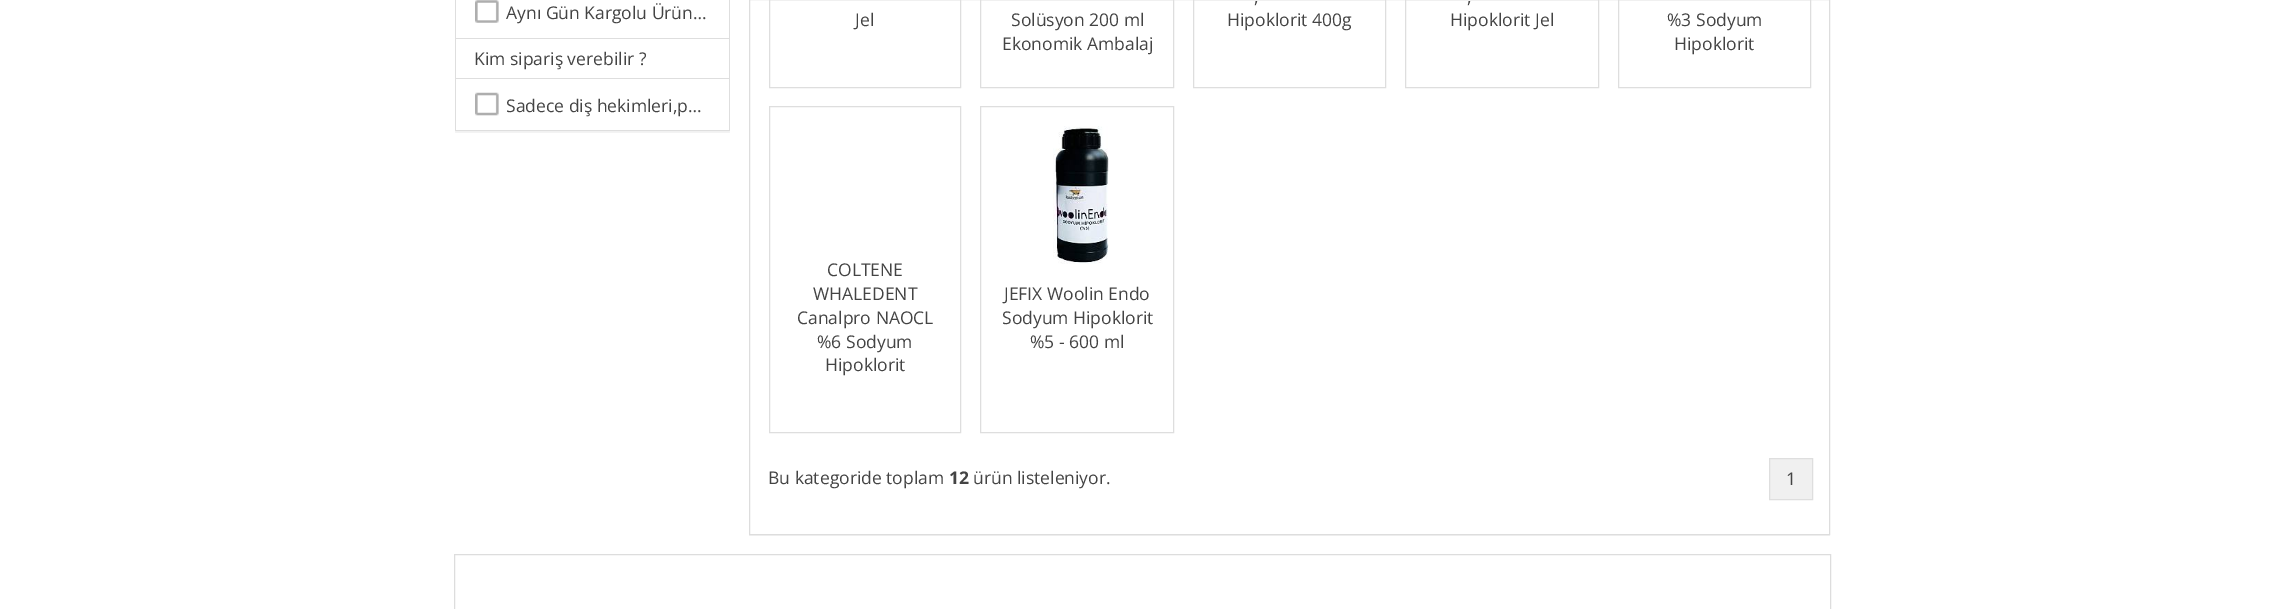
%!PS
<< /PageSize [2283 609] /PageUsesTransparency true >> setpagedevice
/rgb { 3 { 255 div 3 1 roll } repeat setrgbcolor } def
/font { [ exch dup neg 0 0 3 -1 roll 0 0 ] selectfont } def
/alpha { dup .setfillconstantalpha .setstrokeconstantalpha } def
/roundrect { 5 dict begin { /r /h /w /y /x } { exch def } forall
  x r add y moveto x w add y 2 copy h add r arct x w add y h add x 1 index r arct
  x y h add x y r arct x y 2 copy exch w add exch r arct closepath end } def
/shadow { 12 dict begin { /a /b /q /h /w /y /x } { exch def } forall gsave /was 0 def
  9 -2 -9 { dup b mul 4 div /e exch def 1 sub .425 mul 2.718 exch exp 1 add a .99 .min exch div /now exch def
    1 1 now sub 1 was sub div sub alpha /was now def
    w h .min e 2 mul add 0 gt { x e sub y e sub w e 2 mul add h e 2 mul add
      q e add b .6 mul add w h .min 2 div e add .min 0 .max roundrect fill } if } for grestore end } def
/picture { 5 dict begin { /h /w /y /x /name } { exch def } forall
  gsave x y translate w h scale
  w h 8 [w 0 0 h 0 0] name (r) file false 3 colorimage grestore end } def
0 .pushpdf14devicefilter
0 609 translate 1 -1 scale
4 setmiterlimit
255 255 255 rgb
0 0 2283 609 rectfill
gsave
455 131 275 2 rectclip
0 0 0 rgb
455 -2 275 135 0 0.5 0.05 shadow
grestore
[
  [729 0 1 131 222 222 222]
  [455 130 275 1 222 222 222]
  [455 0 1 131 222 222 222]
] { aload pop rgb rectfill } forall
(img/1.rgb) 475 0 24 23 picture
456 38 273 1 rectfill
456 78 273 1 rectfill
(img/2.rgb) 475 92 24 24 picture
gsave
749 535 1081 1 rectclip
0 0 0 rgb
749 -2 1081 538 0 0.5 0.05 shadow
grestore
221 221 221 rgb
749.5 -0.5 1080 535 rectstroke
222 222 222 rgb
769.5 -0.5 191 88 rectstroke
980.5 -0.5 193 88 rectstroke
1193.5 -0.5 192 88 rectstroke
1405.5 -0.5 193 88 rectstroke
1618.5 -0.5 192 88 rectstroke
769.5 106.5 191 326 rectstroke
980.5 106.5 193 326 rectstroke
(img/3.rgb) 1053 126 56 138 picture
240 240 240 rgb
1769.5 458.5 moveto 1812.5 458.5 lineto 1812.5 499.5 lineto 1769.5 499.5 lineto closepath gsave fill grestore
222 222 222 rgb
stroke
221 221 221 rgb
454.5 554.5 1376 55 rectstroke
/OpenSans-Regular 17.5 font
68 68 68 rgb
[
  [(Aynı Gün Kargolu Ürün…) 506 19]
  [(Kim sipariş verebilir ?) 474 65]
  [(Sadece diş hekimleri,p…) 506 112]
  [(Jel) 855 26]
  [(Solüsyon 200 ml) 1011 26]
  [(Ekonomik Ambalaj) 1002 50]
  [(,) 1254 3]
  [(Hipoklorit 400g) 1227 26]
  [(,) 1467 3]
  [(Hipoklorit Jel) 1450 26]
  [(%3 Sodyum) 1667 26]
  [(Hipoklorit) 1674 50]
  [(COLTENE) 827 276]
  [(WHALEDENT) 813 300]
  [(Canalpro NAOCL) 797 324]
  [(%6 Sodyum) 817 348]
  [(Hipoklorit) 825 371]
  [(JEFIX Woolin Endo) 1004 300]
  [(Sodyum Hipoklorit) 1002 324]
  [(%5 - 600 ml) 1030 348]
  [(Bu kategoride toplam) 768 484]
] { aload pop moveto show } forall
/OpenSans-Bold 17.5 font
949 484 moveto (12) show
/OpenSans-Regular 17.5 font
973 484 moveto (ürün listeleniyor.) show
1786 485 moveto (1) show
.poppdf14devicefilter showpage
